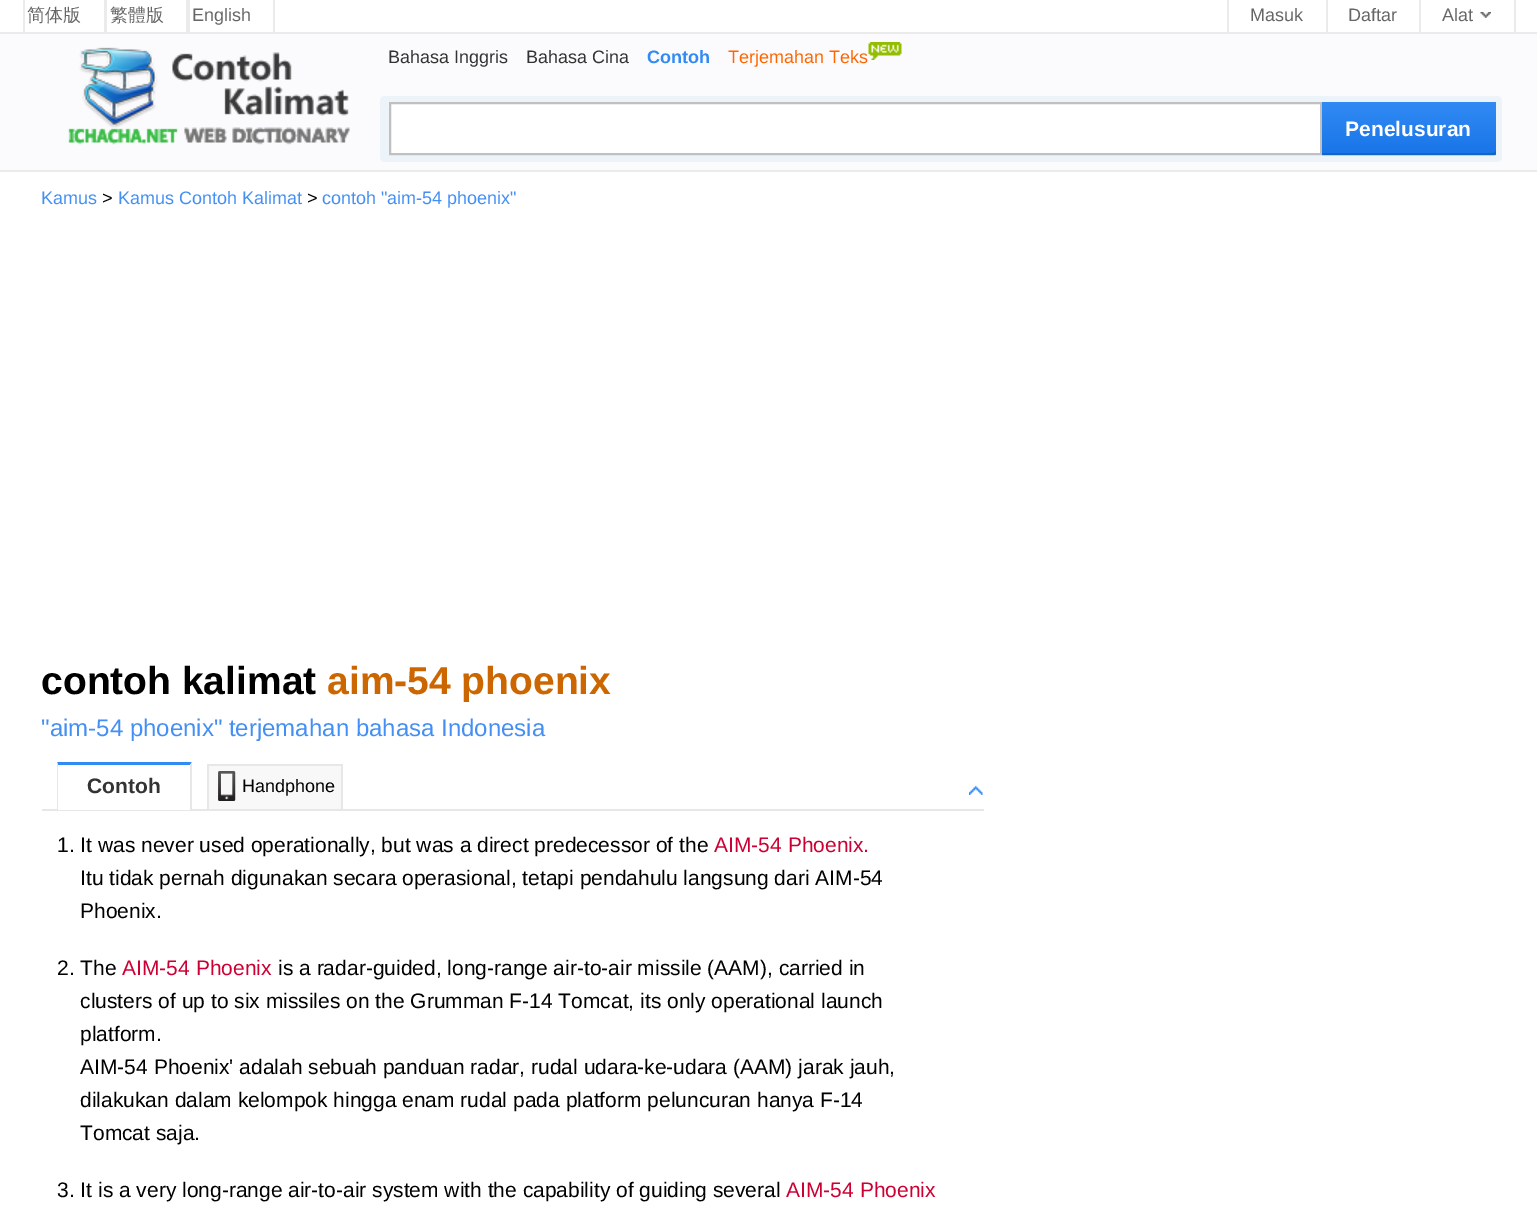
%!PS
<< /PageSize [1537 1206] /PageUsesTransparency true >> setpagedevice
/rgb { 3 { 255 div 3 1 roll } repeat setrgbcolor } def
/font { [ exch dup neg 0 0 3 -1 roll 0 0 ] selectfont } def
/alpha { dup .setfillconstantalpha .setstrokeconstantalpha } def
/roundrect { 5 dict begin { /r /h /w /y /x } { exch def } forall
  x r add y moveto x w add y 2 copy h add r arct x w add y h add x 1 index r arct
  x y h add x y r arct x y 2 copy exch w add exch r arct closepath end } def
/picture { 5 dict begin { /h /w /y /x /name } { exch def } forall
  gsave x y translate w h scale
  w h 8 [w 0 0 h 0 0] name (r) file false 3 colorimage grestore end } def
0 .pushpdf14devicefilter
0 1206 translate 1 -1 scale
4 setmiterlimit
255 255 255 rgb
0 0 1537 1206 rectfill
[
  [0 32 1537 2 235 235 235]
  [104 0 3 32 235 235 235]
  [23 0 2 32 235 235 235]
  [186 0 4 32 235 235 235]
  [273 0 2 32 235 235 235]
  [1227 0 2 32 235 235 235]
  [1326 0 2 32 235 235 235]
  [1514 0 2 32 235 235 235]
  [1419 0 2 32 235 235 235]
] { aload pop rgb rectfill } forall
(img/1.rgb) 1480 12 11 6 picture
251 251 253 rgb
0 34 1537 136 rectfill
235 235 235 rgb
0 170 1537 2 rectfill
(img/2.rgb) 68 47 282 98 picture
(img/3.rgb) 868 42 34 18 picture
237 244 249 rgb
380 96 1122 66 5 roundrect fill
255 255 255 rgb
390 103 moveto 1321 103 lineto 1321 154 lineto 390 154 lineto closepath gsave fill grestore
192 192 192 rgb
2 setlinewidth
stroke
201 207 212 rgb
1322 154 moveto 1322 156 lineto 1493 156 lineto 1495 156 1496 155 1496 153 curveto 1496 107 lineto 1496 105 lineto 1496 152 lineto 1496 153 1494 154 1492 154 curveto closepath fill
gsave 1322 102 moveto 1493 102 lineto 1494.5 102 1496 103.5 1496 105 curveto 1496 152 lineto 1496 153.5 1494.5 155 1493 155 curveto 1322 155 lineto closepath clip newpath
<< /ShadingType 2 /ColorSpace /DeviceRGB /Coords [1409 102 1409 155] /Extend [true true] /Function << /FunctionType 2 /Domain [0 1] /C0 [0.196 0.541 0.957] /C1 [0.094 0.459 0.906] /N 1 >> >> shfill grestore
0.15 alpha
0 0 0 rgb
1322 153 moveto 1322 155 lineto 1493 155 lineto 1495 155 1496 154 1496 152 curveto 1496 150 lineto 1496 152 1494 153 1492 153 curveto closepath fill
1 alpha
231 231 231 rgb
42 809 942 2 rectfill
255 255 255 rgb
57 809 135 1 rectfill
50 138 244 rgb
57 762 moveto 192 762 lineto 190 765 lineto 58 765 lineto closepath fill
231 231 231 rgb
192 762 moveto 192 810 lineto 190 810 lineto 190 765 lineto closepath fill
57 810 moveto 57 762 lineto 58 765 lineto 58 810 lineto closepath fill
[
  [209 766 132 43 248 248 248]
  [207 764 135 2 231 231 231]
  [341 764 2 45 231 231 231]
  [207 764 2 45 231 231 231]
] { aload pop rgb rectfill } forall
(img/4.rgb) 218 771 18 30 picture
(img/5.rgb) 969 785 14 10 picture
/WenQuanYiZenHei-Medium 18 font
102 102 102 rgb
27 21 moveto (简体版) show
110 21 moveto (繁體版) show
/LiberationSans-Regular 18 font
[
  [(English) 192 21]
  [(Masuk) 1250 21]
  [(Daftar) 1348 21]
  [(Alat) 1442 21]
] { aload pop moveto show } forall
51 51 51 rgb
388 63 moveto (Bahasa Inggris) show
526 63 moveto (Bahasa Cina) show
/LiberationSans-Bold 18 font
50 138 244 rgb
647 63 moveto (Contoh) show
/LiberationSans-Regular 18 font
255 102 0 rgb
728 63 moveto (Terjemahan Teks) show
/LiberationSans-Bold 21 font
255 255 255 rgb
1345 136 moveto (Penelusuran) show
/LiberationSans-Regular 18 font
68 143 244 rgb
41 204 moveto (Kamus) show
0 0 0 rgb
102 204 moveto (>) show
68 143 244 rgb
118 204 moveto (Kamus Contoh Kalimat) show
0 0 0 rgb
307 204 moveto (>) show
68 143 244 rgb
322 204 moveto (contoh "aim-54 phoenix") show
/LiberationSans-Bold 39 font
0 0 0 rgb
41 694 moveto (contoh kalimat) show
204 102 0 rgb
327 694 moveto (aim-54 phoenix) show
/LiberationSans-Regular 24 font
68 143 244 rgb
41 736 moveto ("aim-54 phoenix" terjemahan bahasa Indonesia) show
/LiberationSans-Bold 21 font
51 51 51 rgb
87 793 moveto (Contoh) show
/LiberationSans-Regular 18 font
0 0 0 rgb
242 792 moveto (Handphone) show
/LiberationSans-Regular 21 font
57 852 moveto (1. It was never used operationally, but was a direct predecessor of the) show
204 0 51 rgb
714 852 moveto (AIM-54 Phoenix.) show
0 0 0 rgb
[
  [(Itu tidak pernah digunakan secara operasional, tetapi pendahulu langsung dari AIM-54) 80 885]
  [(Phoenix.) 80 918]
  [(2. The) 57 975]
] { aload pop moveto show } forall
204 0 51 rgb
122 975 moveto (AIM-54 Phoenix) show
0 0 0 rgb
[
  [(is a radar-guided, long-range air-to-air missile \(AAM\), carried in) 278 975]
  [(clusters of up to six missiles on the Grumman F-14 Tomcat, its only operational launch) 80 1008]
  [(platform.) 80 1041]
  [(AIM-54 Phoenix' adalah sebuah panduan radar, rudal udara-ke-udara \(AAM\) jarak jauh,) 80 1074]
  [(dilakukan dalam kelompok hingga enam rudal pada platform peluncuran hanya F-14) 80 1107]
  [(Tomcat saja.) 80 1140]
  [(3. It is a very long-range air-to-air system with the capability of guiding several) 57 1197]
] { aload pop moveto show } forall
204 0 51 rgb
786 1197 moveto (AIM-54 Phoenix) show
.poppdf14devicefilter showpage
